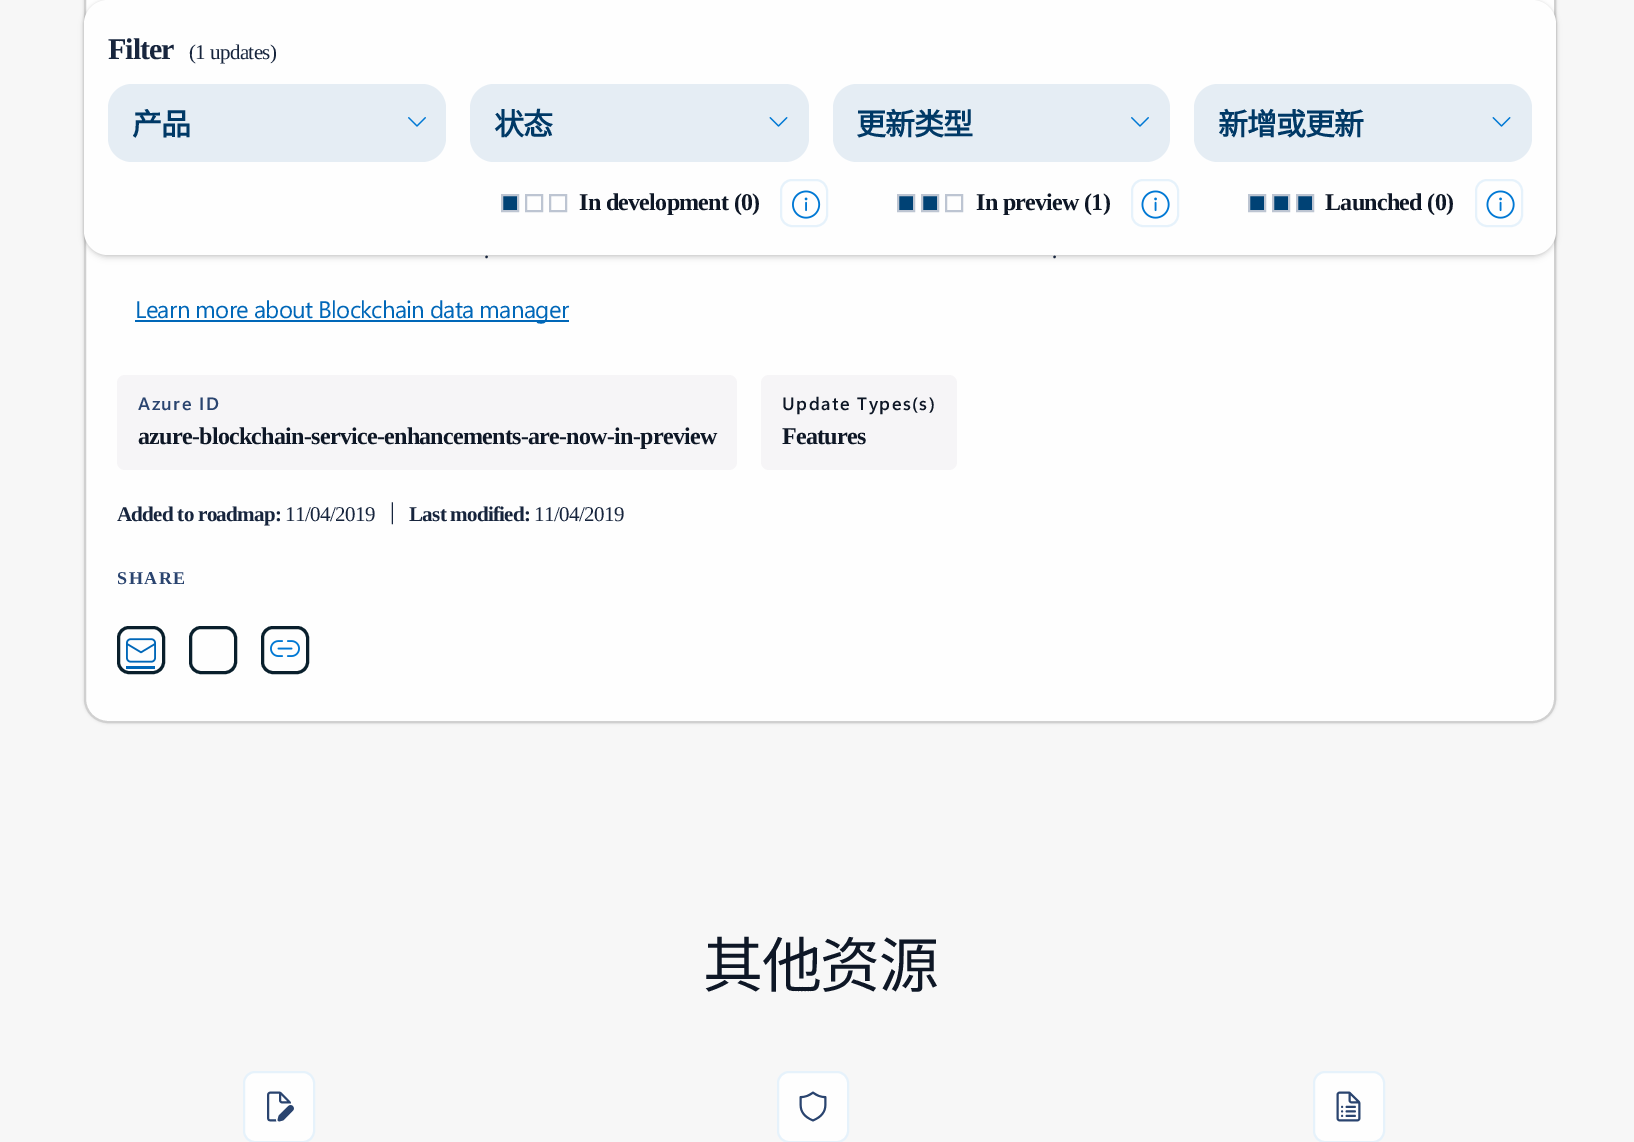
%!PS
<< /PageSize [1634 1142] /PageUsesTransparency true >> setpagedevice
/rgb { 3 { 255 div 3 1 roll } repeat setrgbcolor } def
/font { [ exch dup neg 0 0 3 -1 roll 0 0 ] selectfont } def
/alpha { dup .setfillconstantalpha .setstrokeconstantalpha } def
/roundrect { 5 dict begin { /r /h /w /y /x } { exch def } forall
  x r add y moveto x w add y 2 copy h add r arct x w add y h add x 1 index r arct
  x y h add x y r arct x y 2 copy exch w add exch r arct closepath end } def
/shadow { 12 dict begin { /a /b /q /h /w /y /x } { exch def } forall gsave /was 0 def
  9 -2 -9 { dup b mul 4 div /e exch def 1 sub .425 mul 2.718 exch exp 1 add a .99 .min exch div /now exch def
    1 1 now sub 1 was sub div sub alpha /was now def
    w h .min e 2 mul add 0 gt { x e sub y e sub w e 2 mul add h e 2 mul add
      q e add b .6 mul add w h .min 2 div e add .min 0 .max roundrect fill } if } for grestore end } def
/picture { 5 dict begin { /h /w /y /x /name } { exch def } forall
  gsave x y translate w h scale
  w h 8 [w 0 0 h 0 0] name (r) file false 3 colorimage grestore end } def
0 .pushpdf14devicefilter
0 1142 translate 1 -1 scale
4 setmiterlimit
247 247 247 rgb
0 0 1634 1142 rectfill
gsave
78 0 moveto 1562 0 lineto 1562 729 lineto 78 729 lineto closepath 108 -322 moveto 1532 -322 lineto 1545.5 -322 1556 -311.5 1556 -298 curveto 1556 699 lineto 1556 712.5 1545.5 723 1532 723 curveto 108 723 lineto 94.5 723 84 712.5 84 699 curveto 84 -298 lineto 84 -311.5 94.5 -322 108 -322 curveto closepath eoclip newpath
0 0 0 rgb
84 -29 1472 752 24 1.5 0.12 shadow
grestore
254 254 254 rgb
85 -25 1470 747 23 roundrect gsave fill grestore
208 208 208 rgb
2 setlinewidth
stroke
0 0 0 rgb
84 3 1472 255 24 3 0.14 shadow
84 0 1472 255 24 1.5 0.12 shadow
254 254 254 rgb
84 0 1472 255 24 roundrect fill
229 237 244 rgb
108 84 338 78 24 roundrect fill
(img/1.rgb) 408 117 18 10 picture
470 84 339 78 24 roundrect fill
(img/2.rgb) 769 117 19 10 picture
833 84 337 78 24 roundrect fill
(img/1.rgb) 1131 117 18 10 picture
1194 84 338 78 24 roundrect fill
(img/2.rgb) 1492 117 19 10 picture
0 66 117 rgb
502 195 moveto 518 195 lineto 518 211 lineto 502 211 lineto closepath gsave fill grestore
189 197 210 rgb
stroke
526 195 16 16 rectstroke
550 195 16 16 rectstroke
230 242 251 rgb
781 180 46 46 11 roundrect stroke
(img/3.rgb) 792 190 29 29 picture
0 66 117 rgb
898 195 moveto 914 195 lineto 914 211 lineto 898 211 lineto closepath gsave fill grestore
189 197 210 rgb
stroke
0 66 117 rgb
922 195 moveto 938 195 lineto 938 211 lineto 922 211 lineto closepath gsave fill grestore
189 197 210 rgb
stroke
946 195 16 16 rectstroke
230 242 251 rgb
1132 180 46 46 11 roundrect stroke
(img/4.rgb) 1141 190 29 29 picture
0 66 117 rgb
1249 195 moveto 1265 195 lineto 1265 211 lineto 1249 211 lineto closepath gsave fill grestore
189 197 210 rgb
stroke
0 66 117 rgb
1273 195 moveto 1289 195 lineto 1289 211 lineto 1273 211 lineto closepath gsave fill grestore
189 197 210 rgb
stroke
0 66 117 rgb
1297 195 moveto 1313 195 lineto 1313 211 lineto 1297 211 lineto closepath gsave fill grestore
189 197 210 rgb
stroke
230 242 251 rgb
1476 180 46 46 11 roundrect stroke
(img/4.rgb) 1486 190 29 29 picture
0 103 184 rgb
135 320 434 2 rectfill
246 245 247 rgb
117 375 620 95 8 roundrect fill
761 375 196 95 8 roundrect fill
9 31 44 rgb
3 setlinewidth
118.5 627.5 45 45 10.5 roundrect stroke
(img/5.rgb) 126 638 30 25 picture
0 103 184 rgb
126 666 29 3 rectfill
9 31 44 rgb
190.5 627.5 45 45 10.5 roundrect stroke
262.5 627.5 45 45 10.5 roundrect stroke
(img/6.rgb) 270 640 30 17 picture
254 254 254 rgb
244 1072 70 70 11 roundrect gsave fill grestore
230 242 251 rgb
2 setlinewidth
stroke
(img/7.rgb) 267 1091 27 31 picture
254 254 254 rgb
778 1072 70 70 11 roundrect gsave fill grestore
230 242 251 rgb
stroke
(img/8.rgb) 799 1091 28 31 picture
254 254 254 rgb
1314 1072 70 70 11 roundrect gsave fill grestore
230 242 251 rgb
stroke
(img/9.rgb) 1336 1091 25 31 picture
/LiberationSerif-Bold 30 font
23 37 61 rgb
108 59 moveto -1 0 (Filter) ashow
/LiberationSerif-Regular 21 font
189 59 moveto -0.6 0 (\(1 updates\)) ashow
/NotoSansCJKSC-Bold 30 font
0 57 102 rgb
132 135 moveto -1 0 (产品) ashow
494 135 moveto -1 0 (状态) ashow
856 135 moveto -1 0 (更新类型) ashow
1218 135 moveto -1 0 (新增或更新) ashow
/LiberationSerif-Bold 24 font
14 23 38 rgb
579 210 moveto -0.72 0 (In development \(0\)) ashow
976 210 moveto -0.72 0 (In preview \(1\)) ashow
1325 210 moveto -0.72 0 (Launched \(0\)) ashow
/SegoeUI-Regular 24 font
23 37 61 rgb
484 258 moveto -0.72 0 (.) ashow
1052 258 moveto -0.72 0 (.) ashow
0 103 184 rgb
135 318 moveto -0.72 0 (Learn more about Blockchain data manager) ashow
/SegoeUI-SemiBold 18 font
42 68 111 rgb
138 410 moveto 1.5 0 (Azure ID) ashow
/LiberationSerif-Bold 24 font
14 23 38 rgb
138 444 moveto -0.72 0 (azure-blockchain-service-enhancements-are-now-in-preview) ashow
/SegoeUI-SemiBold 18 font
782 410 moveto 1.5 0 (Update Types\(s\)) ashow
/LiberationSerif-Bold 24 font
782 444 moveto -0.72 0 (Features) ashow
/LiberationSerif-Bold 21 font
23 37 61 rgb
117 521 moveto -0.72 0 (Added to roadmap:) ashow
/LiberationSerif-Regular 21 font
285 521 moveto -0.6 0 (11/04/2019) ashow
/LiberationSerif-Regular 24 font
390 519 moveto -0.72 0 (|) ashow
/LiberationSerif-Bold 21 font
409 521 moveto -0.72 0 (Last modified:) ashow
/LiberationSerif-Regular 21 font
534 521 moveto -0.6 0 (11/04/2019) ashow
/LiberationSerif-Bold 18 font
42 68 111 rgb
117 584 moveto 1.5 0 (SHARE) ashow
/NotoSansCJKSC-Regular 60 font
14 23 38 rgb
703 987 moveto -1.5 0 (其他资源) ashow
.poppdf14devicefilter showpage
